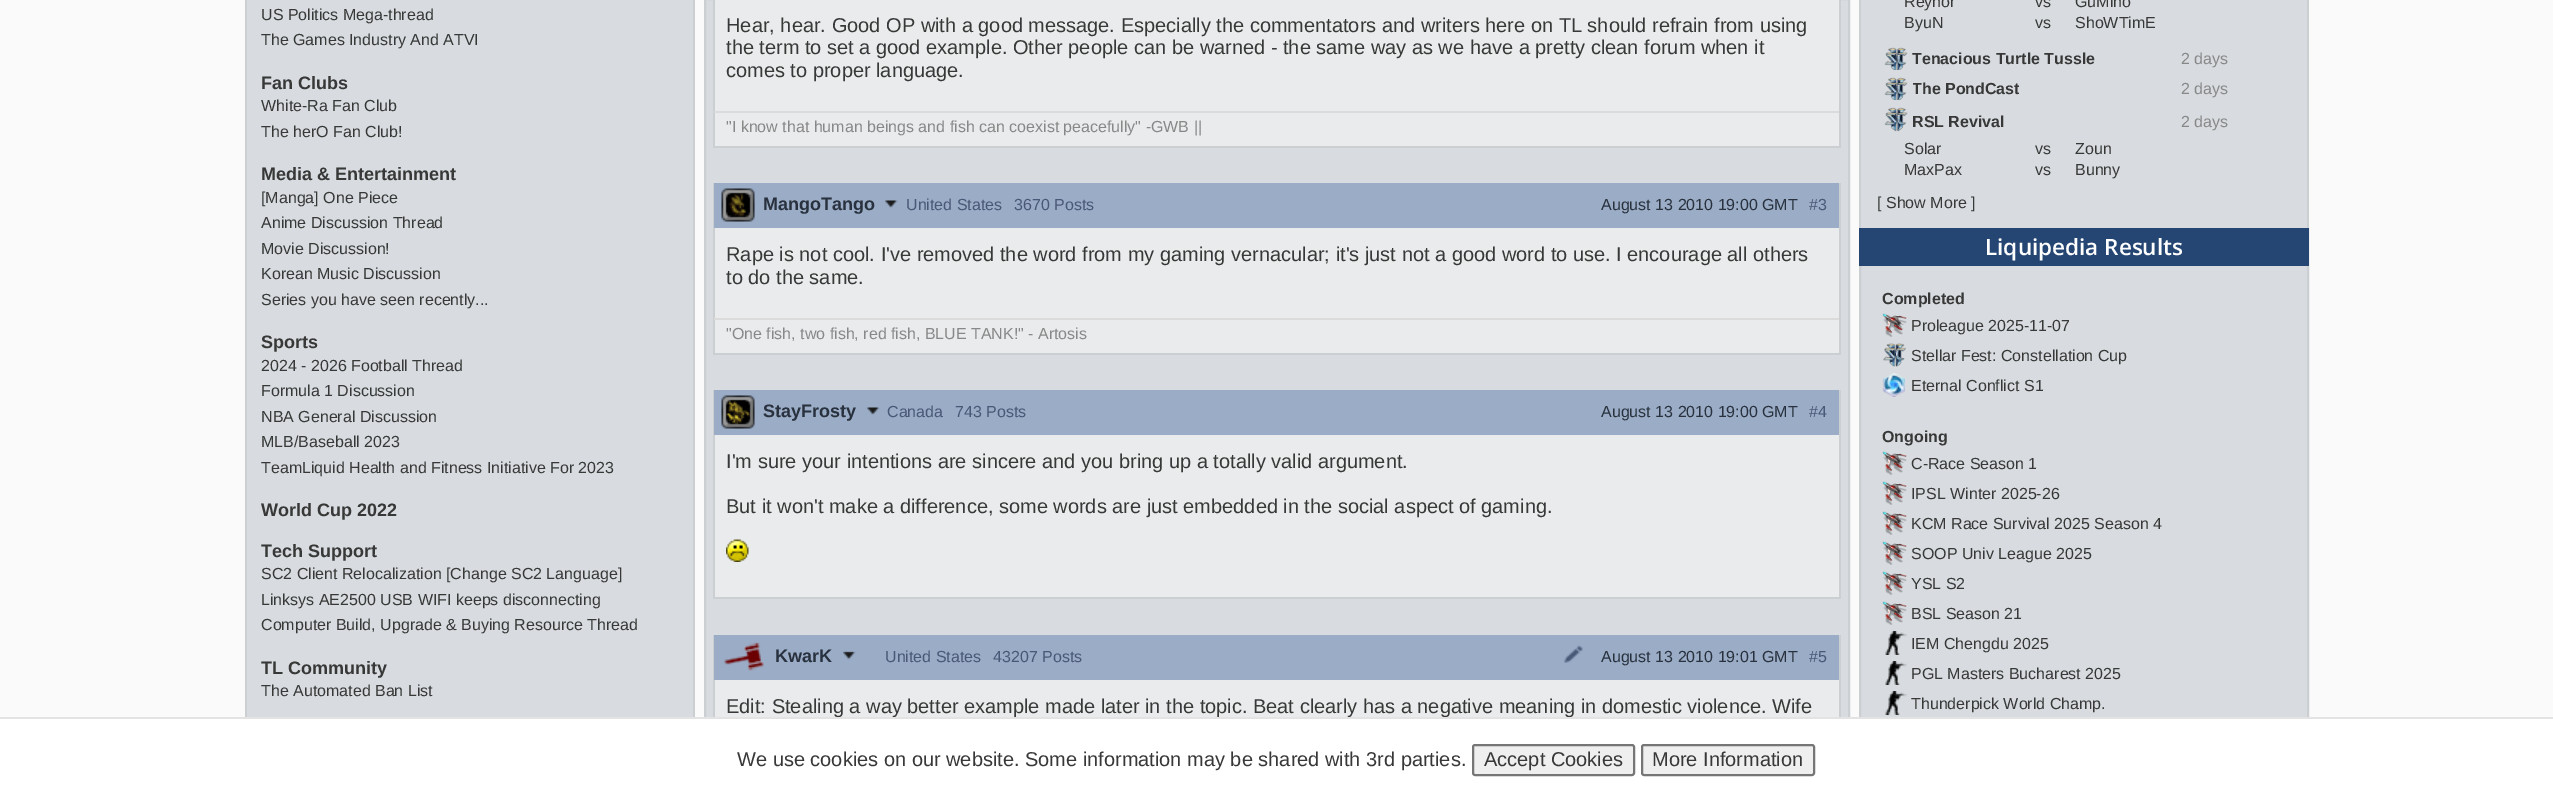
%!PS
<< /PageSize [2553 801] >> setpagedevice
/rgb { 3 { 255 div 3 1 roll } repeat setrgbcolor } def
/font { [ exch dup neg 0 0 3 -1 roll 0 0 ] selectfont } def
/roundrect { 5 dict begin { /r /h /w /y /x } { exch def } forall
  x r add y moveto x w add y 2 copy h add r arct x w add y h add x 1 index r arct
  x y h add x y r arct x y 2 copy exch w add exch r arct closepath end } def
/picture { 5 dict begin { /h /w /y /x /name } { exch def } forall
  gsave x y translate w h scale
  w h 8 [w 0 0 h 0 0] name (r) file false 3 colorimage grestore end } def
0 801 translate 1 -1 scale
4 setmiterlimit
250 250 250 rgb
0 0 2553 801 rectfill
[
  [247 0 446 717 216 220 224]
  [693 0 2 722 203 207 209]
  [245 0 2 722 203 207 209]
  [706 0 1142 717 216 220 224]
] { aload pop rgb rectfill } forall
203 207 209 rgb
2 setlinewidth
705 -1 1144 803 rectstroke
[
  [715 0 1124 146 234 235 236]
  [1839 0 2 147 203 207 209]
  [713 146 1128 2 203 207 209]
  [713 0 2 147 203 207 209]
  [714 111 1125 2 219 219 219]
  [715 228 1124 125 234 235 236]
  [1839 183 2 171 203 207 209]
  [713 353 1128 2 203 207 209]
  [713 183 2 171 203 207 209]
  [714 183 1125 45 154 172 198]
] { aload pop rgb rectfill } forall
(img/1.rgb) 721 188 34 34 picture
(img/2.rgb) 885 200 13 8 picture
[
  [714 318 1125 2 219 219 219]
  [715 435 1124 162 234 235 236]
  [1839 390 2 209 203 207 209]
  [713 597 1128 2 203 207 209]
  [713 390 2 209 203 207 209]
  [714 390 1125 45 154 172 198]
] { aload pop rgb rectfill } forall
(img/3.rgb) 721 395 34 34 picture
(img/2.rgb) 867 407 13 8 picture
(img/4.rgb) 726 539 23 23 picture
[
  [715 680 1124 37 234 235 236]
  [1839 635 2 82 203 207 209]
  [713 635 2 82 203 207 209]
  [714 635 1125 45 154 172 198]
] { aload pop rgb rectfill } forall
(img/5.rgb) 724 642 40 29 picture
(img/6.rgb) 843 651 13 9 picture
(img/7.rgb) 1564 645 19 18 picture
[
  [1861 0 446 228 216 220 224]
  [2307 0 2 228 203 207 209]
  [1859 0 2 228 203 207 209]
] { aload pop rgb rectfill } forall
(img/8.rgb) 1884 47 24 23 picture
(img/8.rgb) 1884 77 24 23 picture
(img/9.rgb) 1884 107 24 25 picture
216 220 224 rgb
1861 266 446 451 rectfill
203 207 209 rgb
1860 229 448 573 rectstroke
37 70 115 rgb
1859 228 450 38 rectfill
(img/10.rgb) 1882 313 25 24 picture
(img/11.rgb) 1883 343 23 24 picture
(img/12.rgb) 1882 373 23 24 picture
(img/10.rgb) 1882 451 25 24 picture
(img/10.rgb) 1882 481 25 24 picture
(img/10.rgb) 1882 511 25 24 picture
(img/10.rgb) 1882 541 25 24 picture
(img/10.rgb) 1882 571 25 24 picture
(img/10.rgb) 1882 601 25 24 picture
(img/13.rgb) 1885 631 22 24 picture
(img/13.rgb) 1885 661 22 24 picture
(img/13.rgb) 1885 691 22 24 picture
255 255 255 rgb
0 719 2553 82 rectfill
239 239 239 rgb
1473 745 161 30 2 roundrect gsave fill grestore
118 118 118 rgb
stroke
239 239 239 rgb
1642 745 172 30 2 roundrect gsave fill grestore
118 118 118 rgb
stroke
/LiberationSans-Regular 16 font
55 56 55 rgb
261 20 moveto (US Politics Mega-thread) show
261 45 moveto (The Games Industry And ATVI) show
/LiberationSans-Bold 18 font
261 89 moveto (Fan Clubs) show
/LiberationSans-Regular 16 font
261 111 moveto (White-Ra Fan Club) show
261 137 moveto (The herO Fan Club!) show
/LiberationSans-Bold 18 font
261 180 moveto (Media & Entertainment) show
/LiberationSans-Regular 16 font
[
  [([Manga] One Piece) 261 203]
  [(Anime Discussion Thread) 261 228]
  [(Movie Discussion!) 261 254]
  [(Korean Music Discussion) 261 279]
  [(Series you have seen recently...) 261 305]
] { aload pop moveto show } forall
/LiberationSans-Bold 18 font
261 348 moveto (Sports) show
/LiberationSans-Regular 16 font
[
  [(2024 - 2026 Football Thread) 261 371]
  [(Formula 1 Discussion) 261 396]
  [(NBA General Discussion) 261 422]
  [(MLB/Baseball 2023) 261 447]
  [(TeamLiquid Health and Fitness Initiative For 2023) 261 473]
] { aload pop moveto show } forall
/LiberationSans-Bold 18 font
261 516 moveto (World Cup 2022) show
261 557 moveto (Tech Support) show
/LiberationSans-Regular 16 font
[
  [(SC2 Client Relocalization [Change SC2 Language]) 261 579]
  [(Linksys AE2500 USB WIFI keeps disconnecting) 261 605]
  [(Computer Build, Upgrade & Buying Resource Thread) 261 630]
] { aload pop moveto show } forall
/LiberationSans-Bold 18 font
261 674 moveto (TL Community) show
/LiberationSans-Regular 16 font
261 696 moveto (The Automated Ban List) show
/LiberationSans-Regular 20 font
[
  [(Hear, hear. Good OP with a good message. Especially the commentators and writers here on TL should refrain from using) 726 32]
  [(the term to set a good example. Other people can be warned - the same way as we have a pretty clean forum when it) 726 54]
  [(comes to proper language.) 726 77]
] { aload pop moveto show } forall
/LiberationSans-Regular 16 font
136 136 136 rgb
726 132 moveto ("I know that human beings and fish can coexist peacefully" -GWB ||) show
/LiberationSans-Bold 18 font
40 49 61 rgb
763 210 moveto (MangoTango) show
/LiberationSans-Regular 16 font
73 88 119 rgb
906 210 moveto (United States) show
1014 210 moveto (3670 Posts) show
40 49 61 rgb
1601 210 moveto (August 13 2010 19:00 GMT) show
73 88 119 rgb
1809 210 moveto (#3) show
/LiberationSans-Regular 20 font
55 56 55 rgb
726 261 moveto (Rape is not cool. I've removed the word from my gaming vernacular; it's just not a good word to use. I encourage all others) show
726 284 moveto (to do the same.) show
/LiberationSans-Regular 16 font
136 136 136 rgb
726 339 moveto ("One fish, two fish, red fish, BLUE TANK!" - Artosis) show
/LiberationSans-Bold 18 font
40 49 61 rgb
763 417 moveto (StayFrosty) show
/LiberationSans-Regular 16 font
73 88 119 rgb
887 417 moveto (Canada) show
955 417 moveto (743 Posts) show
40 49 61 rgb
1601 417 moveto (August 13 2010 19:00 GMT) show
73 88 119 rgb
1809 417 moveto (#4) show
/LiberationSans-Regular 20 font
55 56 55 rgb
726 468 moveto (I'm sure your intentions are sincere and you bring up a totally valid argument.) show
726 513 moveto (But it won't make a difference, some words are just embedded in the social aspect of gaming.) show
/LiberationSans-Bold 18 font
40 49 61 rgb
775 662 moveto (KwarK) show
/LiberationSans-Regular 16 font
73 88 119 rgb
885 662 moveto (United States) show
993 662 moveto (43207 Posts) show
40 49 61 rgb
1601 662 moveto (August 13 2010 19:01 GMT) show
73 88 119 rgb
1809 662 moveto (#5) show
/LiberationSans-Regular 20 font
55 56 55 rgb
726 713 moveto (Edit: Stealing a way better example made later in the topic. Beat clearly has a negative meaning in domestic violence. Wife) show
/LiberationSans-Regular 16 font
[
  [(Reynor) 1904 7]
  [(vs) 2035 7]
  [(GuMiho) 2075 7]
  [(ByuN) 1904 28]
  [(vs) 2035 28]
  [(ShoWTimE) 2075 28]
] { aload pop moveto show } forall
/LiberationSans-Bold 16 font
1912 64 moveto (Tenacious Turtle Tussle) show
/LiberationSans-Regular 16 font
136 136 136 rgb
2181 64 moveto (2 days) show
gsave
1913 80 106 18 rectclip
/LiberationSans-Bold 16 font
55 56 55 rgb
1912 94 moveto (The PondCast) show
grestore
2181 94 moveto (2 days) show
/LiberationSans-Bold 16 font
55 56 55 rgb
1912 127 moveto (RSL Revival) show
/LiberationSans-Regular 16 font
136 136 136 rgb
2181 127 moveto (2 days) show
55 56 55 rgb
[
  [(Solar) 1904 154]
  [(vs) 2035 154]
  [(Zoun) 2075 154]
  [(MaxPax) 1904 175]
  [(vs) 2035 175]
  [(Bunny) 2075 175]
  [([ Show More ]) 1877 208]
] { aload pop moveto show } forall
/OpenSans-SemiBold 22.5 font
255 255 255 rgb
1985 255 moveto (Liquipedia Results) show
/LiberationSans-Bold 16 font
55 56 55 rgb
1882 304 moveto (Completed) show
/LiberationSans-Regular 16 font
[
  [(Proleague 2025-11-07) 1911 331]
  [(Stellar Fest: Constellation Cup) 1911 361]
  [(Eternal Conflict S1) 1911 391]
] { aload pop moveto show } forall
/LiberationSans-Bold 16 font
1882 442 moveto (Ongoing) show
/LiberationSans-Regular 16 font
[
  [(C-Race Season 1) 1911 469]
  [(IPSL Winter 2025-26) 1911 499]
  [(KCM Race Survival 2025 Season 4) 1911 529]
  [(SOOP Univ League 2025) 1911 559]
  [(YSL S2) 1911 589]
  [(BSL Season 21) 1911 619]
  [(IEM Chengdu 2025) 1911 649]
  [(PGL Masters Bucharest 2025) 1911 679]
  [(Thunderpick World Champ.) 1911 709]
] { aload pop moveto show } forall
227 227 227 rgb
0 717 2553 2 rectfill
/LiberationSans-Regular 20 font
55 56 55 rgb
[
  [(We use cookies on our website. Some information may be shared with 3rd parties.) 737 766]
  [(Accept Cookies) 1484 766]
  [(More Information) 1652 766]
] { aload pop moveto show } forall
showpage
